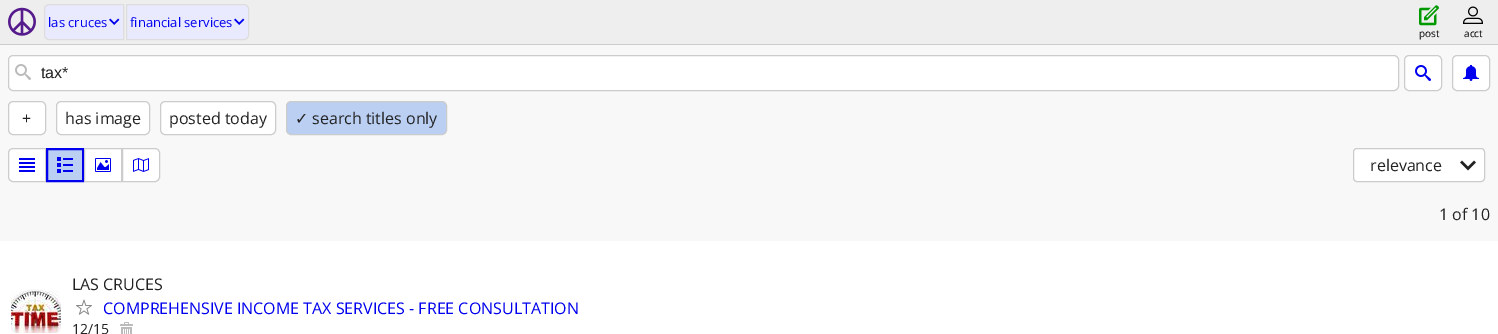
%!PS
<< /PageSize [1498 334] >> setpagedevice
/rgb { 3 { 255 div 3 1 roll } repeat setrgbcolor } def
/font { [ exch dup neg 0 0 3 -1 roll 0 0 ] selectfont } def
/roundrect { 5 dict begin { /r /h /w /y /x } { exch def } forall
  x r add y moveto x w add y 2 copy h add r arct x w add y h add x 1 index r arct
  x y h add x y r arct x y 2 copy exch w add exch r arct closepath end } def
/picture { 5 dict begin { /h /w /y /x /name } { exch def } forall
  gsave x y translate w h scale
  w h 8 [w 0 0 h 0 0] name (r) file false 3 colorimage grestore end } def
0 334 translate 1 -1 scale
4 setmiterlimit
255 255 255 rgb
0 0 1498 334 rectfill
238 238 238 rgb
0 0 1498 44 rectfill
204 204 204 rgb
0 44 1498 1 rectfill
(img/1.rgb) 8 7 28 29 picture
234 234 255 rgb
49 4.5 moveto 123.5 4.5 lineto 123.5 39.5 lineto 49 39.5 lineto 46.5 39.5 44.5 37.5 44.5 35 curveto 44.5 9 lineto 44.5 6.5 46.5 4.5 49 4.5 curveto closepath gsave fill grestore
221 221 221 rgb
stroke
(img/2.rgb) 109 18 11 7 picture
234 234 255 rgb
126.5 4.5 moveto 244 4.5 lineto 246.5 4.5 248.5 6.5 248.5 9 curveto 248.5 35 lineto 248.5 37.5 246.5 39.5 244 39.5 curveto 126.5 39.5 lineto closepath gsave fill grestore
221 221 221 rgb
stroke
(img/2.rgb) 234 18 11 7 picture
(img/3.rgb) 1419 5 20 21 picture
(img/4.rgb) 1463 6 20 18 picture
248 248 248 rgb
0 45 1498 196 rectfill
255 255 255 rgb
8.5 55.5 1390 35 4.5 roundrect gsave fill grestore
204 204 204 rgb
stroke
(img/5.rgb) 15 64 16 16 picture
255 255 255 rgb
1404.5 55.5 37 35 4.5 roundrect gsave fill grestore
204 204 204 rgb
stroke
(img/6.rgb) 1415 65 16 16 picture
255 255 255 rgb
1452.5 55.5 37 35 4.5 roundrect gsave fill grestore
204 204 204 rgb
stroke
(img/7.rgb) 1463 65 16 16 picture
255 255 255 rgb
8.5 101.5 37 33 4.5 roundrect gsave fill grestore
204 204 204 rgb
stroke
255 255 255 rgb
56.5 101.5 93 33 4.5 roundrect gsave fill grestore
204 204 204 rgb
stroke
255 255 255 rgb
160.5 101.5 115 33 4.5 roundrect gsave fill grestore
204 204 204 rgb
stroke
186 207 242 rgb
286.5 101.5 160 33 4.5 roundrect gsave fill grestore
204 204 204 rgb
stroke
255 255 255 rgb
13 148.5 moveto 45.5 148.5 lineto 45.5 181.5 lineto 13 181.5 lineto 10.5 181.5 8.5 179.5 8.5 177 curveto 8.5 153 lineto 8.5 150.5 10.5 148.5 13 148.5 curveto closepath gsave fill grestore
204 204 204 rgb
stroke
(img/8.rgb) 19 158 16 14 picture
186 207 242 rgb
47 149 moveto 83 149 lineto 83 181 lineto 47 181 lineto closepath gsave fill grestore
0 0 238 rgb
2 setlinewidth
stroke
(img/9.rgb) 57 157 16 16 picture
255 255 255 rgb
84.5 148.5 moveto 121.5 148.5 lineto 121.5 181.5 lineto 84.5 181.5 lineto closepath gsave fill grestore
204 204 204 rgb
1 setlinewidth
stroke
(img/10.rgb) 95 158 16 14 picture
255 255 255 rgb
122.5 148.5 moveto 155 148.5 lineto 157.5 148.5 159.5 150.5 159.5 153 curveto 159.5 177 lineto 159.5 179.5 157.5 181.5 155 181.5 curveto 122.5 181.5 lineto closepath gsave fill grestore
204 204 204 rgb
stroke
(img/11.rgb) 133 158 16 14 picture
255 255 255 rgb
1353.5 148.5 131 33 3.5 roundrect gsave fill grestore
204 204 204 rgb
stroke
(img/12.rgb) 1460 160 16 11 picture
(img/13.rgb) 11 289 50 44 picture
(img/14.rgb) 76 299 16 16 picture
(img/15.rgb) 120 322 13 12 picture
/OpenSans-Regular 13 font
0 0 238 rgb
48 27 moveto (las cruces) show
130 27 moveto (financial services) show
/OpenSans-Regular 10 font
0 0 0 rgb
1419 37 moveto (post) show
1464 37 moveto (acct) show
/LiberationSans-Regular 16 font
34 34 34 rgb
41 78 moveto (tax*) show
/OpenSans-Regular 16 font
[
  [(+) 22 124]
  [(has image) 65 124]
  [(posted today) 169 124]
] { aload pop moveto show } forall
/DejaVuSans-Regular 16 font
295 124 moveto (✓) show
/OpenSans-Regular 16 font
[
  [(search titles only) 312 124]
  [(relevance) 1370 171]
  [(1 of 10) 1439 220]
  [(LAS CRUCES) 72 290]
] { aload pop moveto show } forall
0 0 238 rgb
103 314 moveto (COMPREHENSIVE INCOME TAX SERVICES - FREE CONSULTATION) show
/OpenSans-Regular 14 font
34 34 34 rgb
72 334 moveto (12/15) show
showpage
